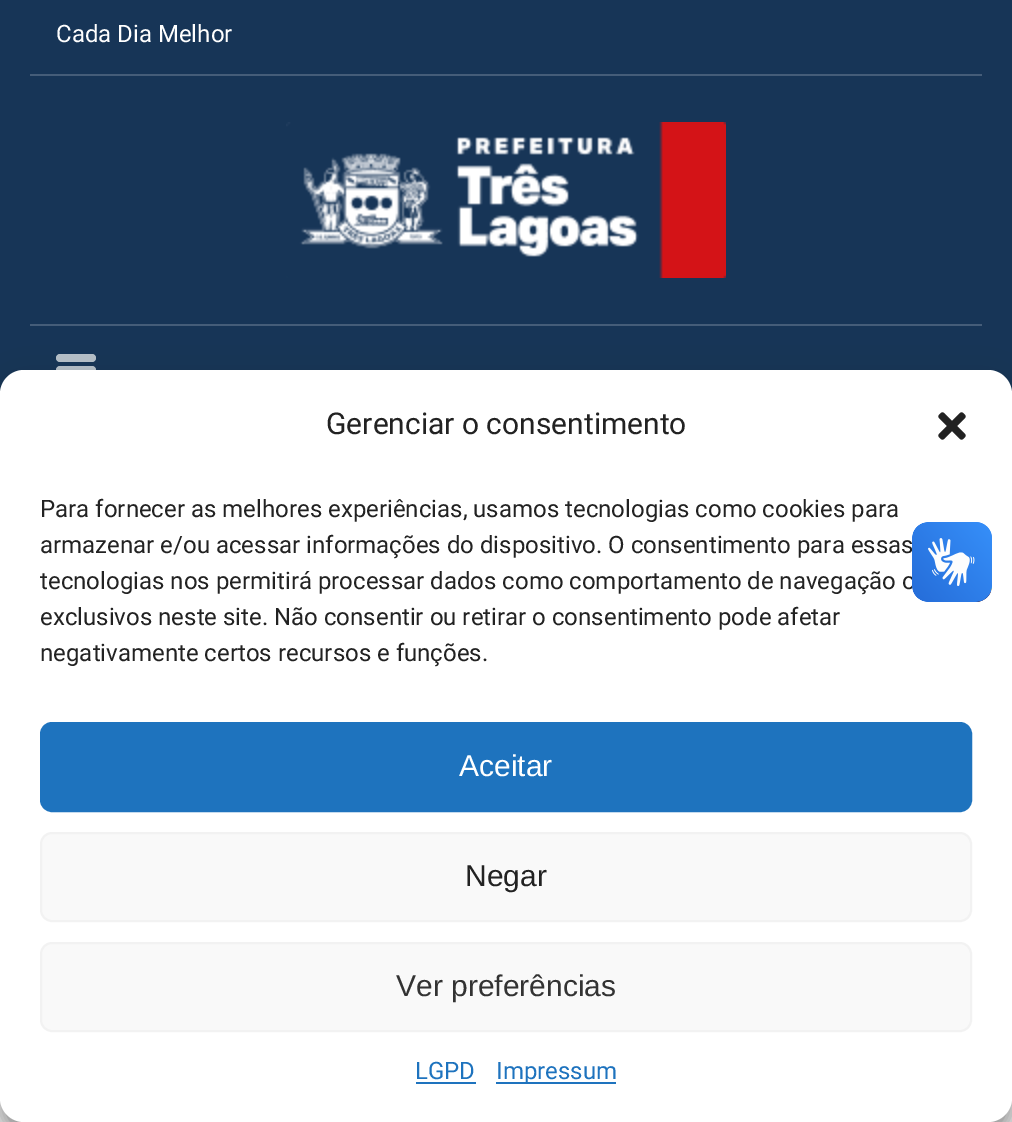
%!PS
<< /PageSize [1012 1122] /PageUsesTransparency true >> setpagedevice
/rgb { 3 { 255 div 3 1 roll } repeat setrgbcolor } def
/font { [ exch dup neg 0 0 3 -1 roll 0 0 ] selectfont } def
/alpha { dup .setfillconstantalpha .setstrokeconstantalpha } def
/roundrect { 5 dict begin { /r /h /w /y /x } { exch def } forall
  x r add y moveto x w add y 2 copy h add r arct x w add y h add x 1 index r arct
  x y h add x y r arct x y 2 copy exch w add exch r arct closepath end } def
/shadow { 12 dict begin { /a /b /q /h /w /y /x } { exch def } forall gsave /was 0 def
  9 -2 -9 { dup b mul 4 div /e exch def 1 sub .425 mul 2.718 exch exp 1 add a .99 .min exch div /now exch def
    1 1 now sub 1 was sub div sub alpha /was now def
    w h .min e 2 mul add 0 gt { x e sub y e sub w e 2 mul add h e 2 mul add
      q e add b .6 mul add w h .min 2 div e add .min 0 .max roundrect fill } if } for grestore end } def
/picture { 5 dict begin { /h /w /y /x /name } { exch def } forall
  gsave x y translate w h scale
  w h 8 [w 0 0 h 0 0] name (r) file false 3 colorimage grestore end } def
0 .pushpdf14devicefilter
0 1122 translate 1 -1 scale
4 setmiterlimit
242 242 242 rgb
0 0 1012 1122 rectfill
23 53 87 rgb
0 0 1012 394 rectfill
69 93 121 rgb
30 74 952 2 rectfill
(img/1.rgb) 286 122 440 156 picture
30 324 952 2 rectfill
181 191 201 rgb
56 354 40 8 4 roundrect fill
56 366 40 8 4 roundrect fill
0 0 0 rgb
0 382 1012 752 24 6 0.23 shadow
0 390 1012 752 24 20 0.19 shadow
255 255 255 rgb
0 370 1012 752 24 roundrect fill
(img/2.rgb) 938 412 28 28 picture
30 115 190 rgb
41 723 930 88 11 roundrect gsave fill grestore
2 setlinewidth
stroke
249 249 249 rgb
41 833 930 88 11 roundrect gsave fill grestore
242 242 242 rgb
stroke
249 249 249 rgb
41 943 930 88 11 roundrect gsave fill grestore
242 242 242 rgb
stroke
30 115 190 rgb
416 1082 60 2 rectfill
496 1082 120 2 rectfill
/Roboto-Regular 24 font
255 255 255 rgb
56 42 moveto (Cada Dia Melhor) show
/Roboto-Regular 30 font
34 34 34 rgb
326 434 moveto (Gerenciar o consentimento) show
/Roboto-Regular 24 font
[
  [(Para fornecer as melhores experiências, usamos tecnologias como cookies para) 40 517]
  [(armazenar e/ou acessar informações do dispositivo. O consentimento para essas) 40 553]
  [(tecnologias nos permitirá processar dados como comportamento de navegação o) 40 589]
  [(exclusivos neste site. Não consentir ou retirar o consentimento pode afetar) 40 625]
  [(negativamente certos recursos e funções.) 40 661]
] { aload pop moveto show } forall
/LiberationSans-Regular 30 font
255 255 255 rgb
459 776 moveto (Aceitar) show
34 34 34 rgb
465 886 moveto (Negar) show
51 51 51 rgb
396 996 moveto (Ver preferências) show
/Roboto-Regular 24 font
30 115 190 rgb
415 1079 moveto (LGPD) show
496 1079 moveto (Impressum) show
(img/3.rgb) 912 522 80 80 picture
(img/4.rgb) 912 522 80 80 picture
.poppdf14devicefilter showpage
